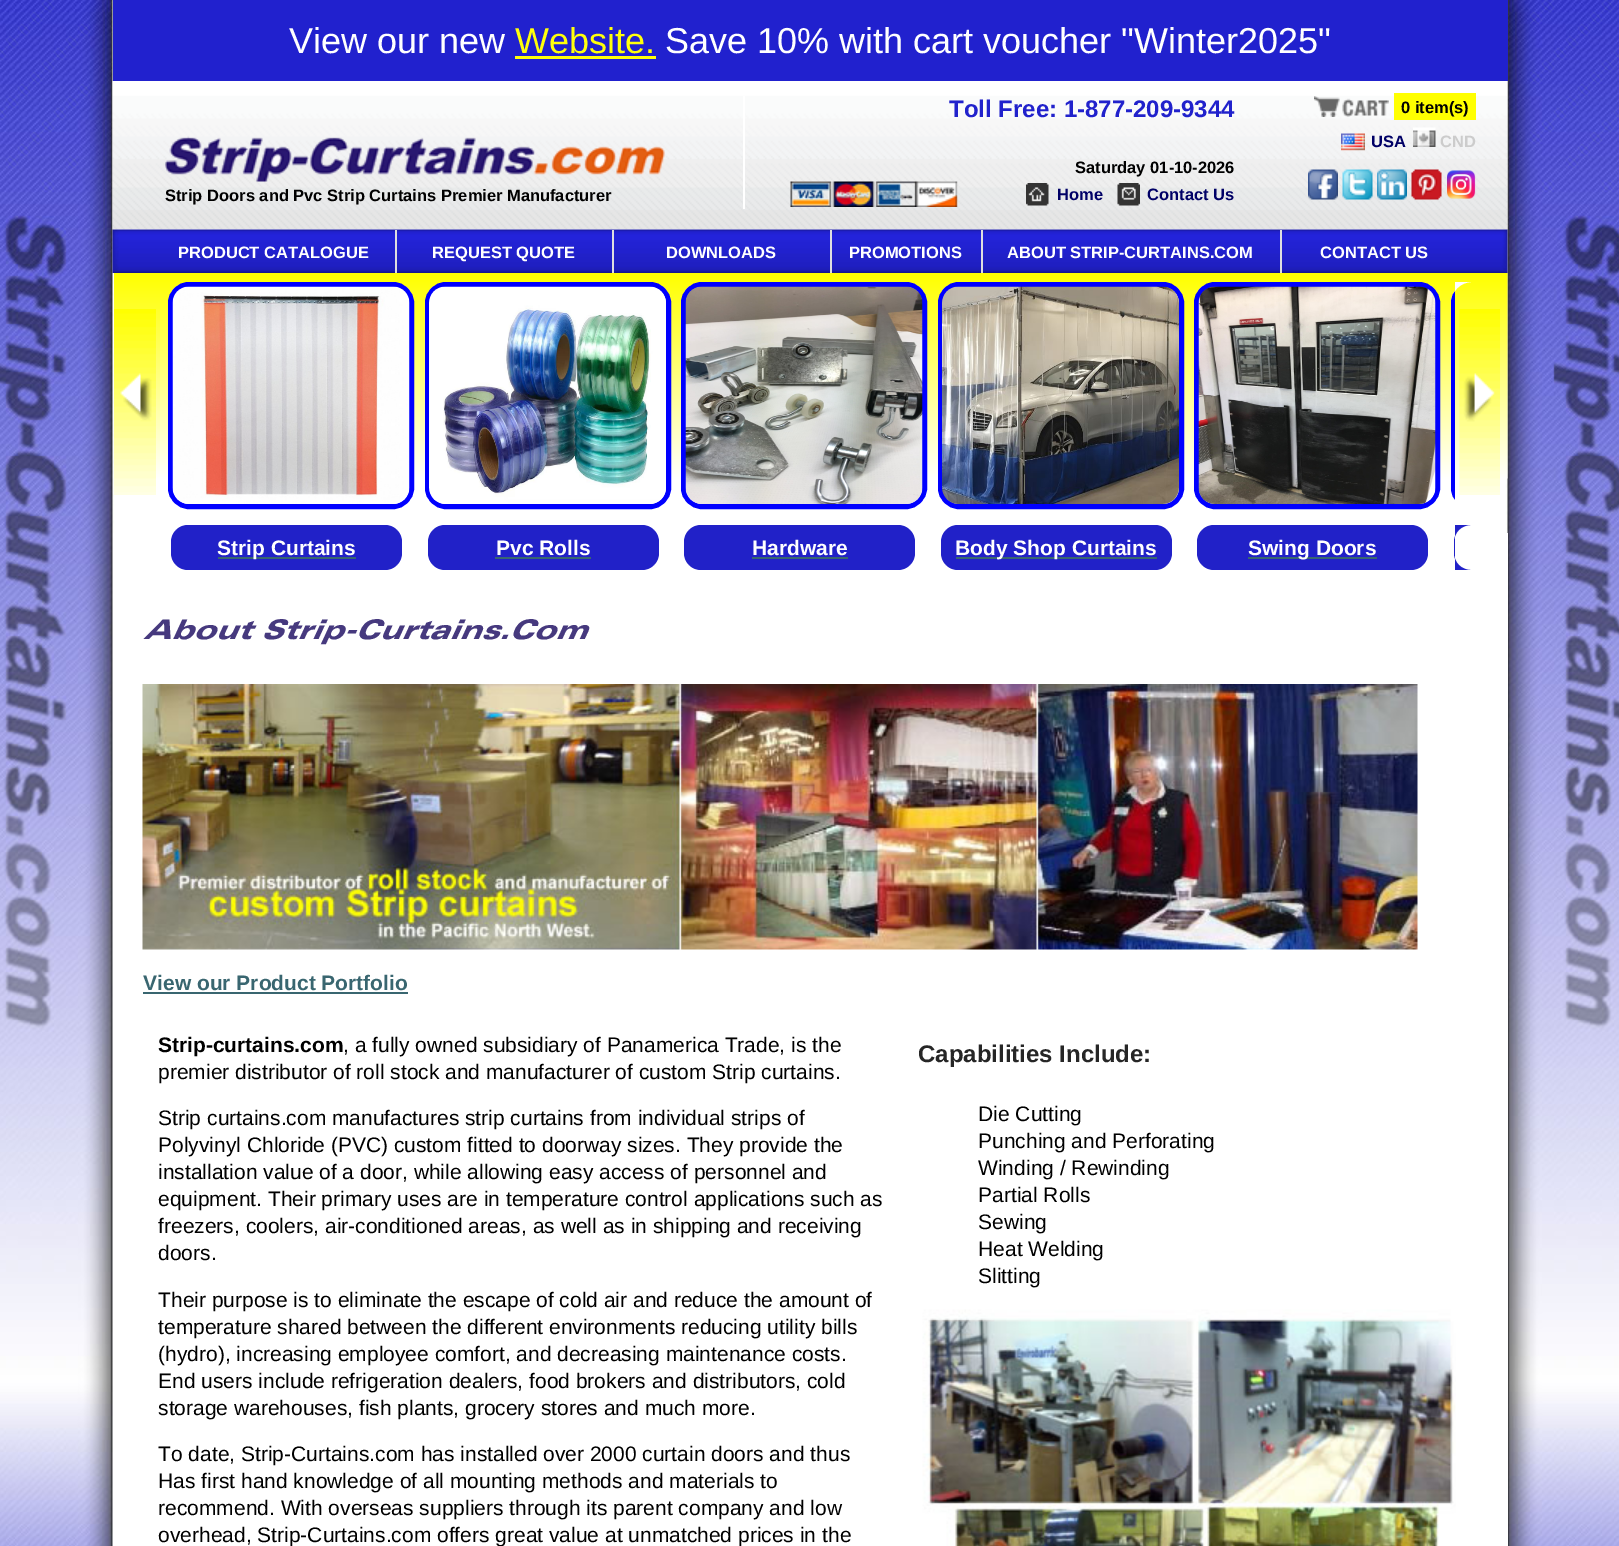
%!PS
<< /PageSize [1619 1546] >> setpagedevice
/rgb { 3 { 255 div 3 1 roll } repeat setrgbcolor } def
/font { [ exch dup neg 0 0 3 -1 roll 0 0 ] selectfont } def
/roundrect { 5 dict begin { /r /h /w /y /x } { exch def } forall
  x r add y moveto x w add y 2 copy h add r arct x w add y h add x 1 index r arct
  x y h add x y r arct x y 2 copy exch w add exch r arct closepath end } def
/picture { 5 dict begin { /h /w /y /x /name } { exch def } forall
  gsave x y translate w h scale
  w h 8 [w 0 0 h 0 0] name (r) file false 3 colorimage grestore end } def
0 1546 translate 1 -1 scale
4 setmiterlimit
255 255 255 rgb
0 0 1619 1546 rectfill
(img/1.rgb) 0 0 1619 1546 picture
33 33 206 rgb
113 0 1395 81 rectfill
255 255 11 rgb
515 56 141 3 rectfill
(img/2.rgb) 112 81 1396 149 picture
255 255 255 rgb
743 96 2 113 rectfill
(img/3.rgb) 165 136 500 46 picture
(img/4.rgb) 1314 96 75 21 picture
255 255 0 rgb
1394 93 82 27 rectfill
(img/5.rgb) 1341 133 24 18 picture
(img/6.rgb) 1413 127 23 20 picture
(img/7.rgb) 1308 169 30 31 picture
(img/8.rgb) 1342 169 31 31 picture
(img/9.rgb) 1377 169 30 31 picture
(img/10.rgb) 1411 169 31 31 picture
(img/11.rgb) 1447 170 29 29 picture
(img/12.rgb) 790 181 168 26 picture
(img/13.rgb) 1026 183 23 23 picture
(img/14.rgb) 1117 183 23 23 picture
(img/15.rgb) 112 229 1396 44 picture
[
  [395 230 2 43 223 223 223]
  [612 230 2 43 223 223 223]
  [830 230 2 43 223 223 223]
  [981 230 2 43 223 223 223]
  [1280 230 2 43 223 223 223]
] { aload pop rgb rectfill } forall
(img/16.rgb) 114 273 1394 206 picture
(img/17.rgb) 114 309 42 186 picture
(img/18.rgb) 1459 309 41 186 picture
0 0 255 rgb
5 setlinewidth
170.5 284.5 241 222 18.5 roundrect stroke
(img/19.rgb) 172 286 238 218 picture
255 255 255 rgb
113 533 1395 1013 rectfill
33 33 200 rgb
171 525 231 45 17 roundrect fill
57 102 112 rgb
218 557 138 2 rectfill
255 255 255 rgb
427.5 284.5 241 222 18.5 roundrect gsave fill grestore
0 0 255 rgb
stroke
(img/20.rgb) 429 286 237 218 picture
33 33 200 rgb
428 525 231 45 17 roundrect fill
57 102 112 rgb
495 557 96 2 rectfill
0 0 255 rgb
683.5 284.5 241 222 18.5 roundrect stroke
(img/21.rgb) 685 286 238 218 picture
33 33 200 rgb
684 525 231 45 17 roundrect fill
57 102 112 rgb
752 557 96 2 rectfill
255 255 255 rgb
940.5 284.5 241 222 18.5 roundrect gsave fill grestore
0 0 255 rgb
stroke
(img/22.rgb) 942 286 237 218 picture
33 33 200 rgb
941 525 231 45 17 roundrect fill
57 102 112 rgb
956 557 201 2 rectfill
0 0 255 rgb
1196.5 284.5 241 222 18.5 roundrect stroke
(img/23.rgb) 1198 286 238 218 picture
33 33 200 rgb
1197 525 231 45 17 roundrect fill
57 102 112 rgb
1248 557 129 2 rectfill
255 255 255 rgb
1472 282 moveto 1455 282 lineto 1455 509 lineto 1472 509 lineto 1460.5 509 1451 499.5 1451 488 curveto 1451 303 lineto 1451 291.5 1460.5 282 1472 282 curveto closepath fill
gsave
159 273 1296 336 rectclip
0 0 255 rgb
1453.5 284.5 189 222 18.5 roundrect stroke
grestore
33 33 200 rgb
1471 525 moveto 1455 525 lineto 1455 570 lineto 1471 570 lineto 1461.5 570 1454 562.5 1454 553 curveto 1454 542 lineto 1454 532.5 1461.5 525 1471 525 curveto closepath fill
(img/24.rgb) 142 684 1276 266 picture
57 102 112 rgb
143 992 265 2 rectfill
(img/25.rgb) 922 1309 534 237 picture
/LiberationSans-Regular 36 font
255 255 255 rgb
289 53 moveto (View our new) show
255 255 11 rgb
515 53 moveto (Website.) show
255 255 255 rgb
665 53 moveto (Save 10% with cart voucher "Winter2025") show
/LiberationSans-Bold 16.5 font
0 0 0 rgb
165 201 moveto (Strip Doors and Pvc Strip Curtains Premier Manufacturer) show
/LiberationSans-Bold 24 font
33 34 204 rgb
949 117 moveto (Toll Free: 1-877-209-9344) show
/LiberationSans-Bold 16.5 font
0 0 0 rgb
1401 113 moveto (0 item\(s\)) show
0 0 102 rgb
1371 147 moveto (USA) show
204 204 204 rgb
1440 147 moveto (CND) show
0 0 0 rgb
1075 173 moveto (Saturday 01-10-2026) show
0 0 102 rgb
1057 200 moveto (Home) show
1147 200 moveto (Contact Us) show
255 255 255 rgb
[
  [(PRODUCT CATALOGUE) 178 258]
  [(REQUEST QUOTE) 432 258]
  [(DOWNLOADS) 666 258]
  [(PROMOTIONS) 849 258]
  [(ABOUT STRIP-CURTAINS.COM) 1007 258]
  [(CONTACT US) 1320 258]
] { aload pop moveto show } forall
/LiberationSans-Bold 21 font
[
  [(Strip Curtains) 217 555]
  [(Pvc Rolls) 496 555]
  [(Hardware) 752 555]
  [(Body Shop Curtains) 955 555]
  [(Swing Doors) 1248 555]
] { aload pop moveto show } forall
/Univers-BlackItalic 27 font
70 57 126 rgb
143 639 moveto (About Strip-Curtains.Com) show
/LiberationSans-Bold 21 font
57 102 112 rgb
143 990 moveto (View our Product Portfolio) show
0 0 0 rgb
158 1052 moveto (Strip-curtains.com) show
/LiberationSans-Regular 21 font
[
  [(, a fully owned subsidiary of Panamerica Trade, is the) 343 1052]
  [(premier distributor of roll stock and manufacturer of custom Strip curtains.) 158 1079]
  [(Strip curtains.com manufactures strip curtains from individual strips of) 158 1125]
  [(Polyvinyl Chloride \(PVC\) custom fitted to doorway sizes. They provide the) 158 1152]
  [(installation value of a door, while allowing easy access of personnel and) 158 1179]
  [(equipment. Their primary uses are in temperature control applications such as) 158 1206]
  [(freezers, coolers, air-conditioned areas, as well as in shipping and receiving) 158 1233]
  [(doors.) 158 1260]
  [(Their purpose is to eliminate the escape of cold air and reduce the amount of) 158 1307]
  [(temperature shared between the different environments reducing utility bills) 158 1334]
  [(\(hydro\), increasing employee comfort, and decreasing maintenance costs.) 158 1361]
  [(End users include refrigeration dealers, food brokers and distributors, cold) 158 1388]
  [(storage warehouses, fish plants, grocery stores and much more.) 158 1415]
  [(To date, Strip-Curtains.com has installed over 2000 curtain doors and thus) 158 1461]
  [(Has first hand knowledge of all mounting methods and materials to) 158 1488]
  [(recommend. With overseas suppliers through its parent company and low) 158 1515]
  [(overhead, Strip-Curtains.com offers great value at unmatched prices in the) 158 1542]
] { aload pop moveto show } forall
/LiberationSans-Bold 24 font
38 38 38 rgb
918 1062 moveto (Capabilities Include:) show
/LiberationSans-Regular 21 font
0 0 0 rgb
[
  [(Die Cutting) 978 1121]
  [(Punching and Perforating) 978 1148]
  [(Winding / Rewinding) 978 1175]
  [(Partial Rolls) 978 1202]
  [(Sewing) 978 1229]
  [(Heat Welding) 978 1256]
  [(Slitting) 978 1283]
] { aload pop moveto show } forall
showpage
